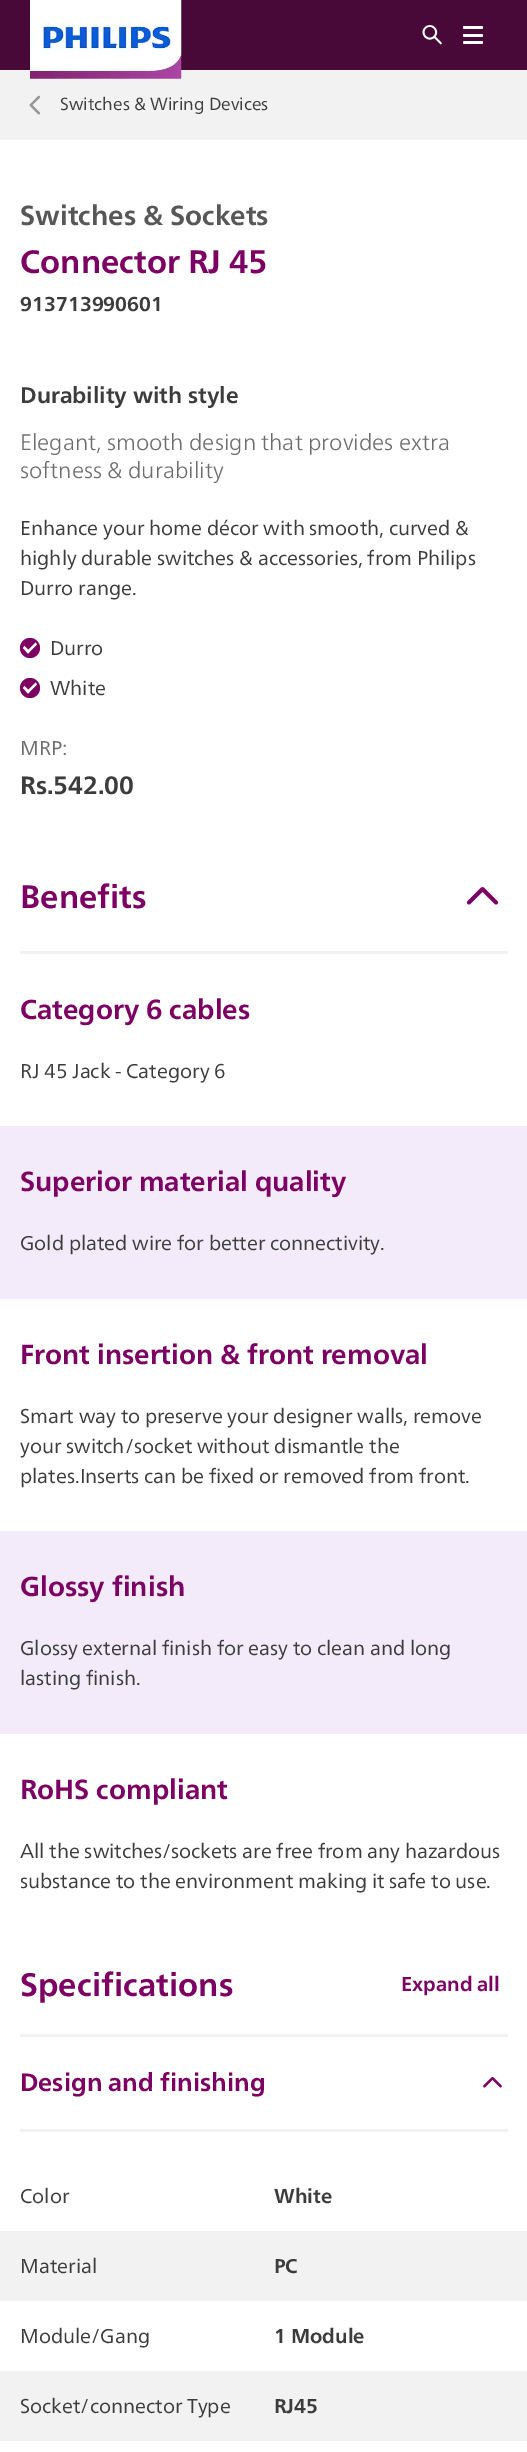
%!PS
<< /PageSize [527 2452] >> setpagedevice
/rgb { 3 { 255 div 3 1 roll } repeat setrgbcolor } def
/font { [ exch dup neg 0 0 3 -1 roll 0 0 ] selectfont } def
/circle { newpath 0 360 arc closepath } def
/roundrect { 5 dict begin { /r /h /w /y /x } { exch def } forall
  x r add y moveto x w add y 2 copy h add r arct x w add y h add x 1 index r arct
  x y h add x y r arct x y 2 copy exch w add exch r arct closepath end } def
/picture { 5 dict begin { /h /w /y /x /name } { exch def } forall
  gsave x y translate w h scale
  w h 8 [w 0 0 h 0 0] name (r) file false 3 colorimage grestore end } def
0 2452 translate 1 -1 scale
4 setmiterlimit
255 255 255 rgb
0 0 527 2452 rectfill
72 9 56 rgb
0 0 527 70 rectfill
242 242 242 rgb
0 70 527 70 rectfill
(img/1.rgb) 30 0 152 79 picture
(img/2.rgb) 422 25 20 20 picture
255 255 255 rgb
463 26 20 3 1.5 roundrect fill
463 34 20 3 1.5 roundrect fill
463 41 20 3 1.5 roundrect fill
(img/3.rgb) 29 95 11 20 picture
125 0 99 rgb
30 648 10 circle fill
255 255 255 rgb
35.5 642.5 moveto 37 644.5 lineto 28 653.5 lineto 26.5 651.5 lineto closepath fill
24.5 646 moveto 30 651.5 lineto 28 653.5 lineto 23 648 lineto closepath fill
125 0 99 rgb
30 688 10 circle fill
255 255 255 rgb
35.5 682.5 moveto 37 684.5 lineto 28 693.5 lineto 26.5 691.5 lineto closepath fill
24.5 686 moveto 30 691.5 lineto 28 693.5 lineto 23 688 lineto closepath fill
242 242 242 rgb
20 951 488 3 rectfill
(img/4.rgb) 466 887 33 18 picture
[
  [0 1126 527 173 243 235 250]
  [0 1531 527 203 243 235 250]
  [20 2034 488 3 242 242 242]
  [20 2129 488 3 242 242 242]
] { aload pop rgb rectfill } forall
(img/5.rgb) 483 2077 19 11 picture
0 2231 527 70 rectfill
0 2371 527 70 rectfill
/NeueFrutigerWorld-Regular 17.5 font
60 60 60 rgb
60 110 moveto (Switches & Wiring Devices) show
/NeueFrutigerWorld-Bold 27.5 font
87 87 87 rgb
20 225 moveto (Switches & Sockets) show
/NeueFrutigerWorld-Bold 32.5 font
125 0 99 rgb
20 273 moveto (Connector RJ 45) show
/NeueFrutigerWorld-Bold 20 font
60 60 60 rgb
20 311 moveto (913713990601) show
/NeueFrutigerWorld-Bold 22.5 font
20 403 moveto (Durability with style) show
/NeueFrutigerWorld-Light 22.5 font
109 109 109 rgb
20 450 moveto (Elegant, smooth design that provides extra) show
20 478 moveto (softness & durability) show
/NeueFrutigerWorld-Regular 20 font
60 60 60 rgb
[
  [(Enhance your home décor with smooth, curved &) 20 535]
  [(highly durable switches & accessories, from Philips) 20 565]
  [(Durro range.) 20 595]
  [(Durro) 50 655]
  [(White) 50 695]
] { aload pop moveto show } forall
109 109 109 rgb
20 755 moveto (MRP:) show
/NeueFrutigerWorld-Bold 25 font
60 60 60 rgb
20 794 moveto (Rs.542.00) show
/NeueFrutigerWorld-Bold 32.5 font
125 0 99 rgb
20 908 moveto (Benefits) show
/NeueFrutigerWorld-Bold 27.5 font
20 1019 moveto (Category 6 cables) show
/NeueFrutigerWorld-Regular 20 font
60 60 60 rgb
20 1078 moveto (RJ 45 Jack - Category 6) show
/NeueFrutigerWorld-Bold 27.5 font
125 0 99 rgb
20 1191 moveto (Superior material quality) show
/NeueFrutigerWorld-Regular 20 font
60 60 60 rgb
20 1250 moveto (Gold plated wire for better connectivity.) show
/NeueFrutigerWorld-Bold 27.5 font
125 0 99 rgb
20 1364 moveto (Front insertion & front removal) show
/NeueFrutigerWorld-Regular 20 font
60 60 60 rgb
[
  [(Smart way to preserve your designer walls, remove) 20 1423]
  [(your switch/socket without dismantle the) 20 1453]
  [(plates.Inserts can be fixed or removed from front.) 20 1483]
] { aload pop moveto show } forall
/NeueFrutigerWorld-Bold 27.5 font
125 0 99 rgb
20 1596 moveto (Glossy finish) show
/NeueFrutigerWorld-Regular 20 font
60 60 60 rgb
20 1655 moveto (Glossy external finish for easy to clean and long) show
20 1685 moveto (lasting finish.) show
/NeueFrutigerWorld-Bold 27.5 font
125 0 99 rgb
20 1799 moveto (RoHS compliant) show
/NeueFrutigerWorld-Regular 20 font
60 60 60 rgb
20 1858 moveto (All the switches/sockets are free from any hazardous) show
20 1888 moveto (substance to the environment making it safe to use.) show
/NeueFrutigerWorld-Bold 32.5 font
125 0 99 rgb
20 1996 moveto (Specifications) show
/NeueFrutigerWorld-Bold 20 font
401 1991 moveto (Expand all) show
/NeueFrutigerWorld-Bold 25 font
20 2091 moveto (Design and finishing) show
/NeueFrutigerWorld-Regular 20 font
60 60 60 rgb
20 2203 moveto (Color) show
/NeueFrutigerWorld-Bold 20 font
274 2203 moveto (White) show
/NeueFrutigerWorld-Regular 20 font
20 2273 moveto (Material) show
/NeueFrutigerWorld-Bold 20 font
274 2273 moveto (PC) show
/NeueFrutigerWorld-Regular 20 font
20 2343 moveto (Module/Gang) show
/NeueFrutigerWorld-Bold 20 font
274 2343 moveto (1 Module) show
/NeueFrutigerWorld-Regular 20 font
20 2413 moveto (Socket/connector Type) show
/NeueFrutigerWorld-Bold 20 font
274 2413 moveto (RJ45) show
showpage
